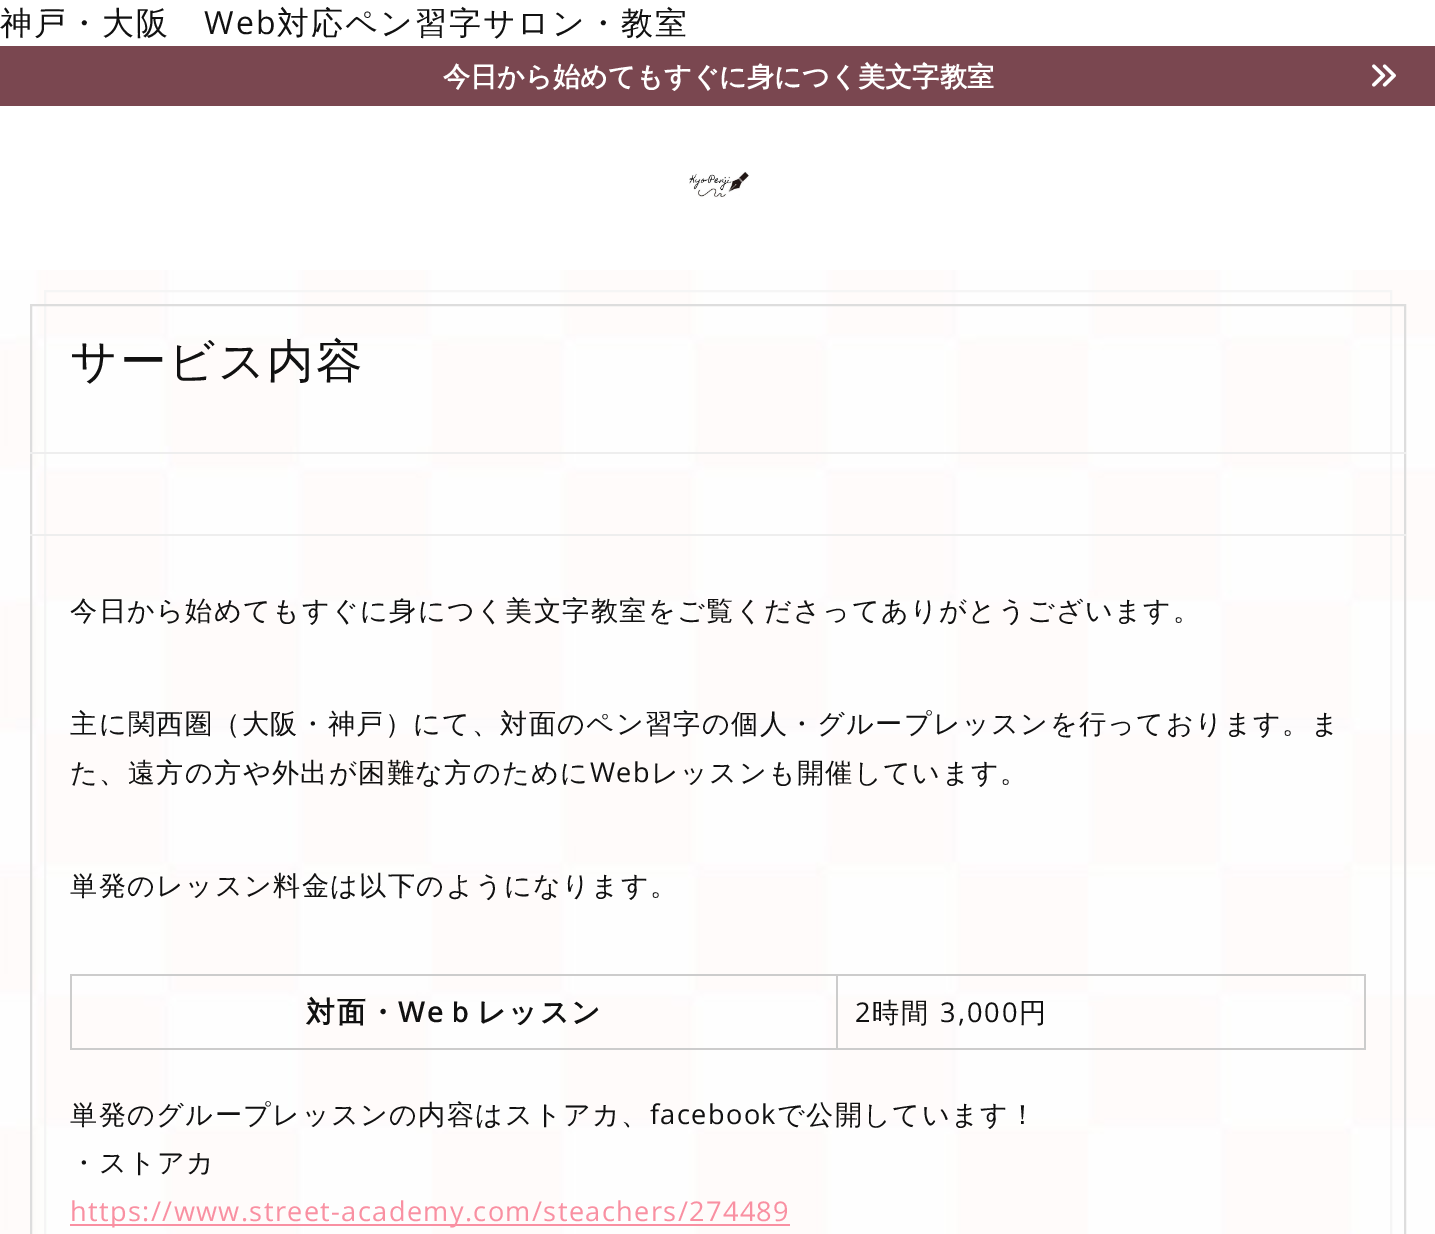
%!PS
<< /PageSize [1435 1234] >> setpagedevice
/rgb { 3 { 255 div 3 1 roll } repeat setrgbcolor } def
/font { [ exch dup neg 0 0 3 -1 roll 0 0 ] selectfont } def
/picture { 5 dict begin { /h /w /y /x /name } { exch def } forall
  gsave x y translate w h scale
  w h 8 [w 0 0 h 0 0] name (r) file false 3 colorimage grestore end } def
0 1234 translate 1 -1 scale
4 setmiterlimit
255 255 255 rgb
0 0 1435 1234 rectfill
(img/1.rgb) 0 270 1435 964 picture
122 71 80 rgb
0 46 1435 60 rectfill
(img/2.rgb) 1372 64 24 23 picture
(img/3.rgb) 689 171 60 27 picture
245 245 245 rgb
2 setlinewidth
45 291 1346 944 rectstroke
221 221 221 rgb
31 305 1374 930 rectstroke
[
  [30 452 1376 2 238 238 238]
  [30 534 1376 2 238 238 238]
  [70 974 1296 2 204 204 204]
  [1364 974 2 76 204 204 204]
  [70 1048 1296 2 204 204 204]
  [70 974 2 76 204 204 204]
  [836 974 2 76 204 204 204]
  [70 1224 720 2 249 144 162]
] { aload pop rgb rectfill } forall
/WenQuanYiZenHei-Medium 32 font
17 17 17 rgb
0 34 moveto 2 0 (神戸・大阪) ashow
/OpenSans-Regular 32 font
204 34 moveto 2 0 (Web) ashow
/WenQuanYiZenHei-Medium 32 font
277 34 moveto 2 0 (対応ペン習字サロン・教室) ashow
/WenQuanYiZenHei-Bold 27.2 font
255 255 255 rgb
443 86 moveto (今日から始めてもすぐに身につく美文字教室) show
/WenQuanYiZenHei-Medium 46.5 font
17 17 17 rgb
70 377 moveto 2 0 (サービス内容) ashow
/WenQuanYiZenHei-Medium 27.2 font
70 620 moveto 1.35 0 (今日から始めてもすぐに身につく美文字教室をご覧くださってありがとうございます。) ashow
70 733 moveto 1.35 0 (主に関西圏（大阪・神戸）にて、対面のペン習字の個人・グループレッスンを行っております。ま) ashow
70 782 moveto 1.35 0 (た、遠方の方や外出が困難な方のために) ashow
/OpenSans-Regular 27.2 font
590 782 moveto 1.35 0 (Web) ashow
/WenQuanYiZenHei-Medium 27.2 font
651 782 moveto 1.35 0 (レッスンも開催しています。) ashow
70 895 moveto 1.35 0 (単発のレッスン料金は以下のようになります。) ashow
/WenQuanYiZenHei-Bold 28.75 font
306 1022 moveto 2 0 (対面・) ashow
/OpenSans-SemiBold 28.75 font
398 1022 moveto 2 0 (We) ashow
/WenQuanYiZenHei-Bold 28.75 font
446 1022 moveto 2 0 (ｂレッスン) ashow
/OpenSans-Regular 27.2 font
855 1022 moveto 2 0 (2) ashow
/WenQuanYiZenHei-Medium 27.2 font
872 1022 moveto 2 0 (時間) ashow
/OpenSans-Regular 27.2 font
940 1022 moveto 2 0 (3,000) ashow
/WenQuanYiZenHei-Medium 27.2 font
1019 1022 moveto 2 0 (円) ashow
70 1124 moveto 1.35 0 (単発のグループレッスンの内容はストアカ、) ashow
/OpenSans-Regular 27.2 font
650 1124 moveto 1.35 0 (facebook) ashow
/WenQuanYiZenHei-Medium 27.2 font
777 1124 moveto 1.35 0 (で公開しています！) ashow
70 1172 moveto 1.35 0 (・ストアカ) ashow
/OpenSans-Regular 27.2 font
249 144 162 rgb
70 1221 moveto 1.35 0 (https://www.street-academy.com/steachers/274489) ashow
showpage
